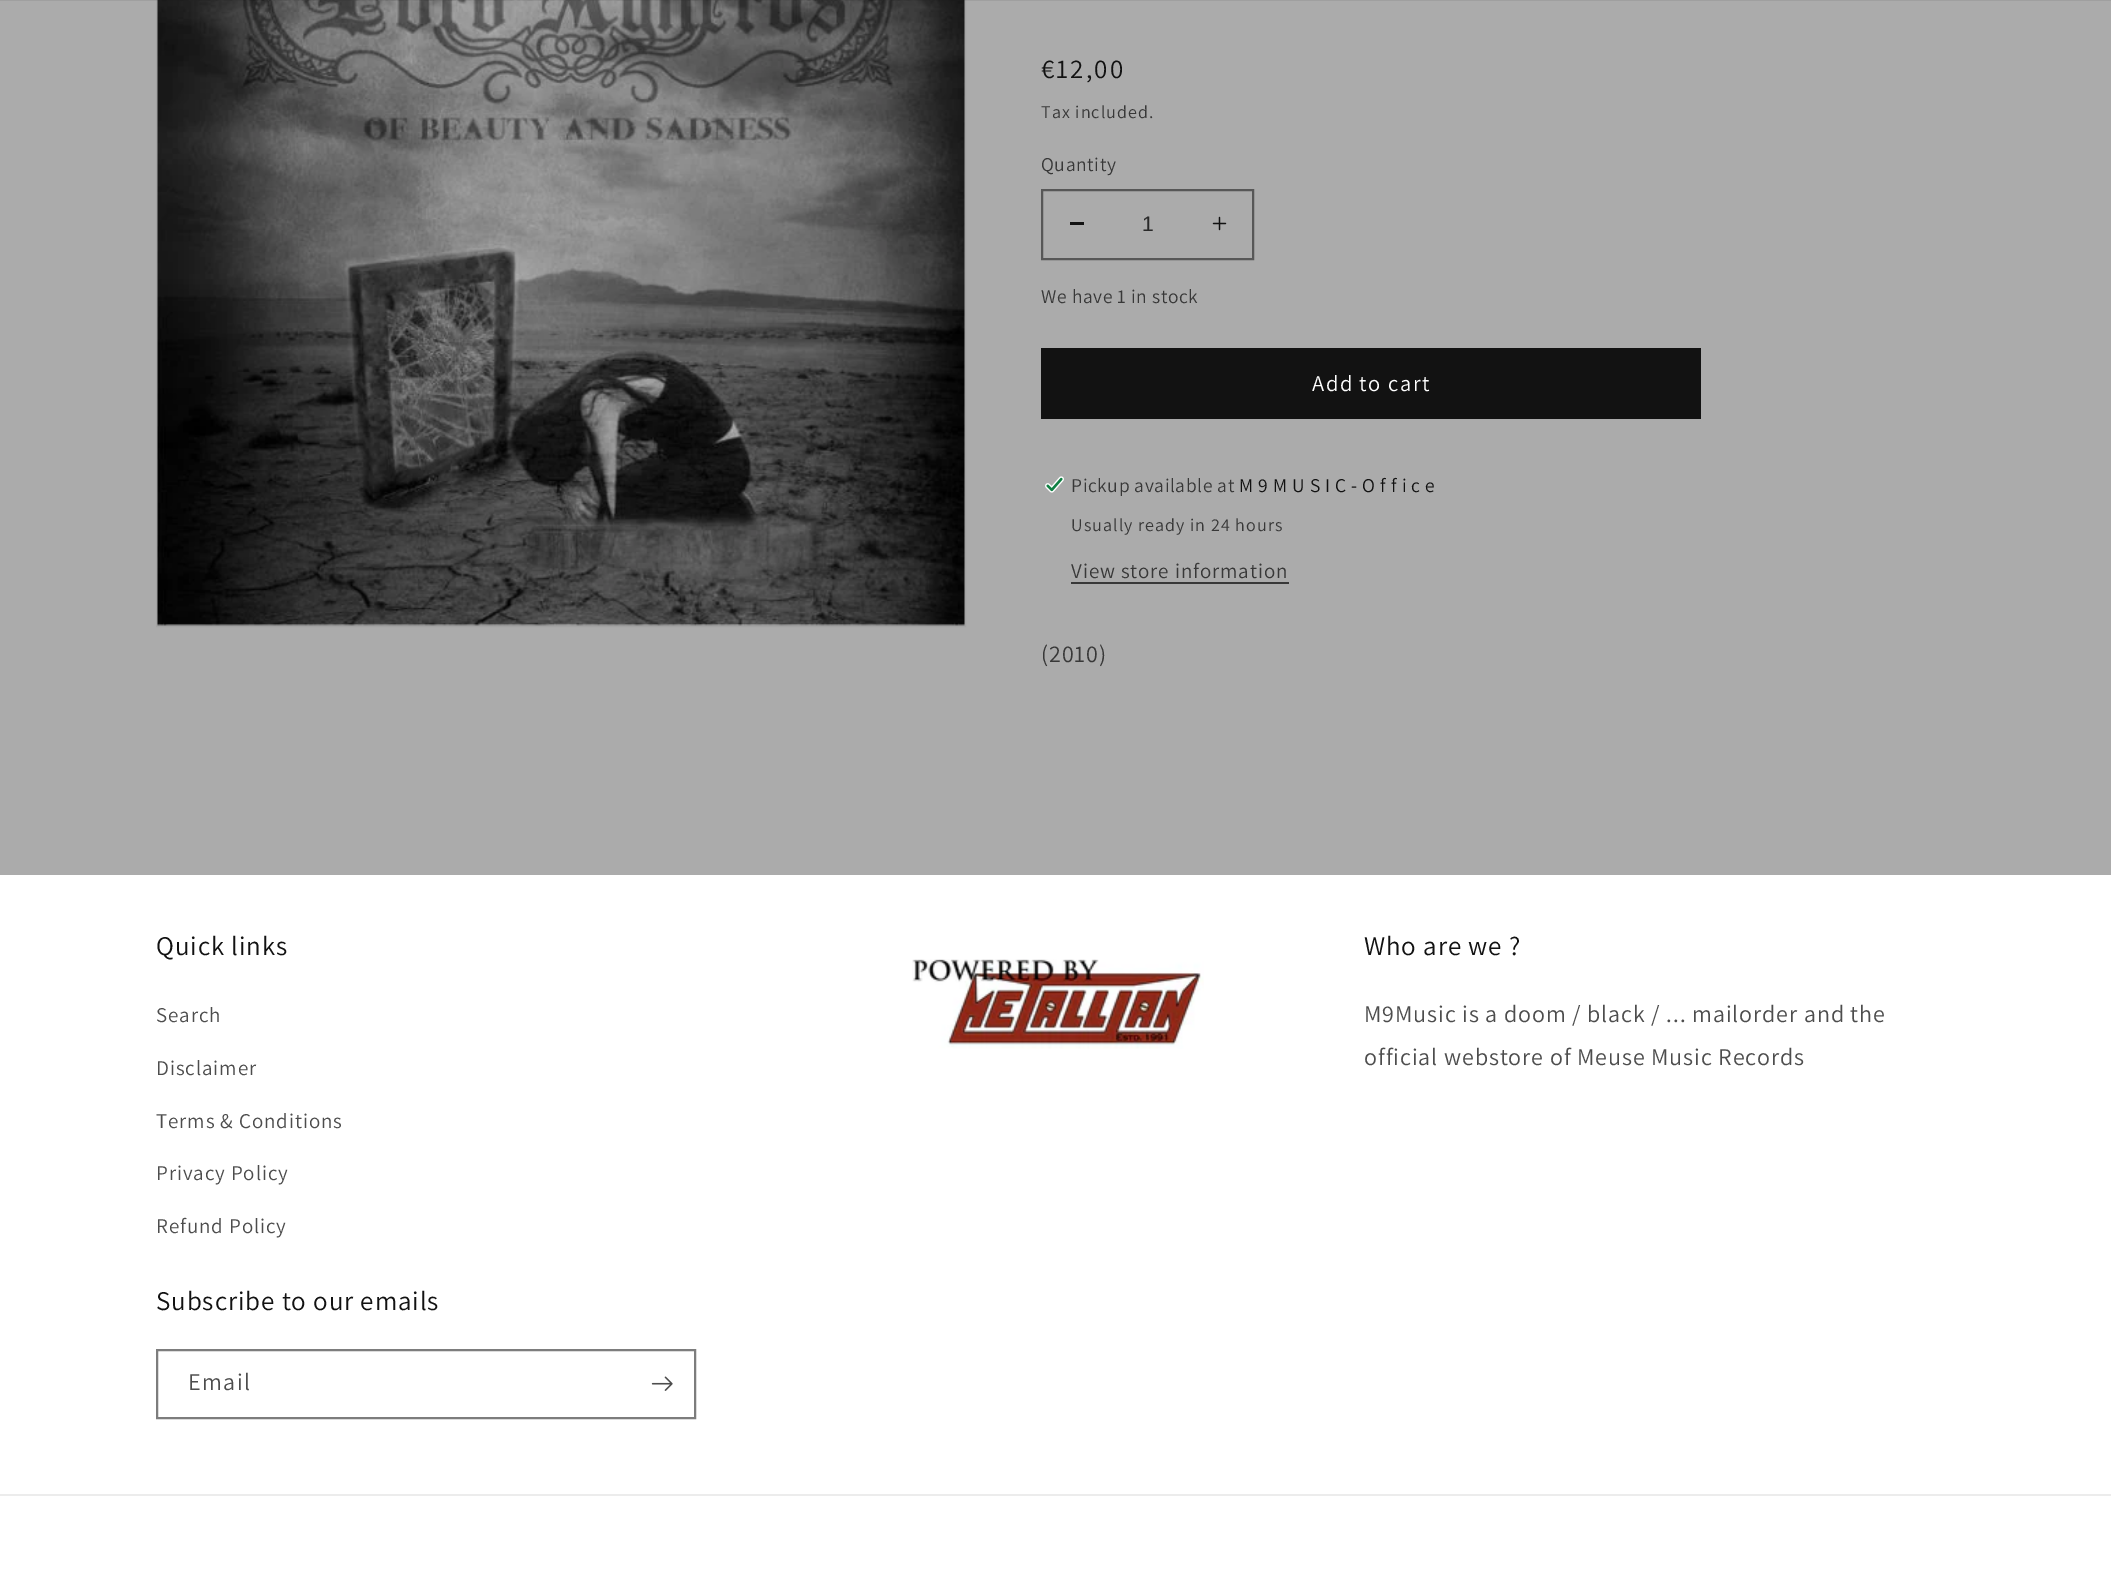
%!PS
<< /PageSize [2111 1572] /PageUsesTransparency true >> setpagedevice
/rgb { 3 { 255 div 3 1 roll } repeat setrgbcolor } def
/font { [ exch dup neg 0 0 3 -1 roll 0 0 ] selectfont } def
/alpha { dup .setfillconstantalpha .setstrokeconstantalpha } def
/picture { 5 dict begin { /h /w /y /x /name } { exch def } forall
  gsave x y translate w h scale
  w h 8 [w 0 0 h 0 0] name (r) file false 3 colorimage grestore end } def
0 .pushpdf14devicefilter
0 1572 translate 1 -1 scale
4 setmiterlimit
171 171 171 rgb
0 0 2111 1572 rectfill
163 163 163 rgb
2 setlinewidth
157 -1 808 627 rectstroke
(img/1.rgb) 157 0 808 626 picture
0.08 alpha
18 18 18 rgb
0 0 2111 1 rectfill
1 alpha
1070 222 14 3 rectfill
(img/2.rgb) 1212 216 15 15 picture
87 87 87 rgb
1042 190 211 69 rectstroke
18 18 18 rgb
1041 348 660 71 rectfill
(img/3.rgb) 1045 476 19 17 picture
56 56 56 rgb
1071 582 218 2 rectfill
255 255 255 rgb
0 875 2111 697 rectfill
(img/4.rgb) 912 959 292 90 picture
125 125 125 rgb
157 1350 538 68 rectstroke
(img/5.rgb) 651 1376 22 15 picture
236 236 236 rgb
0 1494 2111 2 rectfill
/Assistant-Regular 27 font
18 18 18 rgb
1041 78 moveto 2 0 (€12,00) ashow
/Assistant-Regular 18 font
56 56 56 rgb
1041 118 moveto 1.05 0 (Tax included.) ashow
/Assistant-Regular 19.5 font
1041 171 moveto 0.6 0 (Quantity) ashow
/LiberationSans-Regular 21 font
41 41 41 rgb
1142 231 moveto (1) show
/Assistant-Regular 19.5 font
56 56 56 rgb
1041 303 moveto 0.6 0 (We have 1 in stock) ashow
/Assistant-Regular 22.5 font
255 255 255 rgb
1312 391 moveto 1.5 0 (Add to cart) ashow
/Assistant-Regular 19.5 font
56 56 56 rgb
1071 492 moveto 0.6 0 (Pickup available at) ashow
18 18 18 rgb
1239 492 moveto 0.6 0 (M 9 M U S I C - O f f i c e) ashow
/Assistant-Regular 18 font
56 56 56 rgb
1071 531 moveto 1.05 0 (Usually ready in 24 hours) ashow
/Assistant-Regular 21 font
1071 578 moveto 0.9 0 (View store information) ashow
/Assistant-Regular 24 font
1041 662 moveto 0.9 0 (\(2010\)) ashow
/Assistant-Regular 27 font
18 18 18 rgb
156 955 moveto 0.9 0 (Quick links) ashow
/Assistant-Regular 21 font
77 77 77 rgb
156 1022 moveto 0.9 0 (Search) ashow
156 1075 moveto 0.9 0 (Disclaimer) ashow
156 1128 moveto 0.9 0 (Terms & Conditions) ashow
156 1180 moveto 0.9 0 (Privacy Policy) ashow
156 1233 moveto 0.9 0 (Refund Policy) ashow
/Assistant-Regular 27 font
18 18 18 rgb
1364 955 moveto 0.9 0 (Who are we ?) ashow
/Assistant-Regular 24 font
77 77 77 rgb
1364 1022 moveto 0.9 0 (M9Music is a doom / black / ... mailorder and the) ashow
1364 1065 moveto 0.9 0 (official webstore of Meuse Music Records) ashow
/Assistant-Regular 27 font
18 18 18 rgb
156 1310 moveto 0.9 0 (Subscribe to our emails) ashow
/Assistant-Regular 24 font
77 77 77 rgb
188 1390 moveto 1.5 0 (Email) ashow
.poppdf14devicefilter showpage
